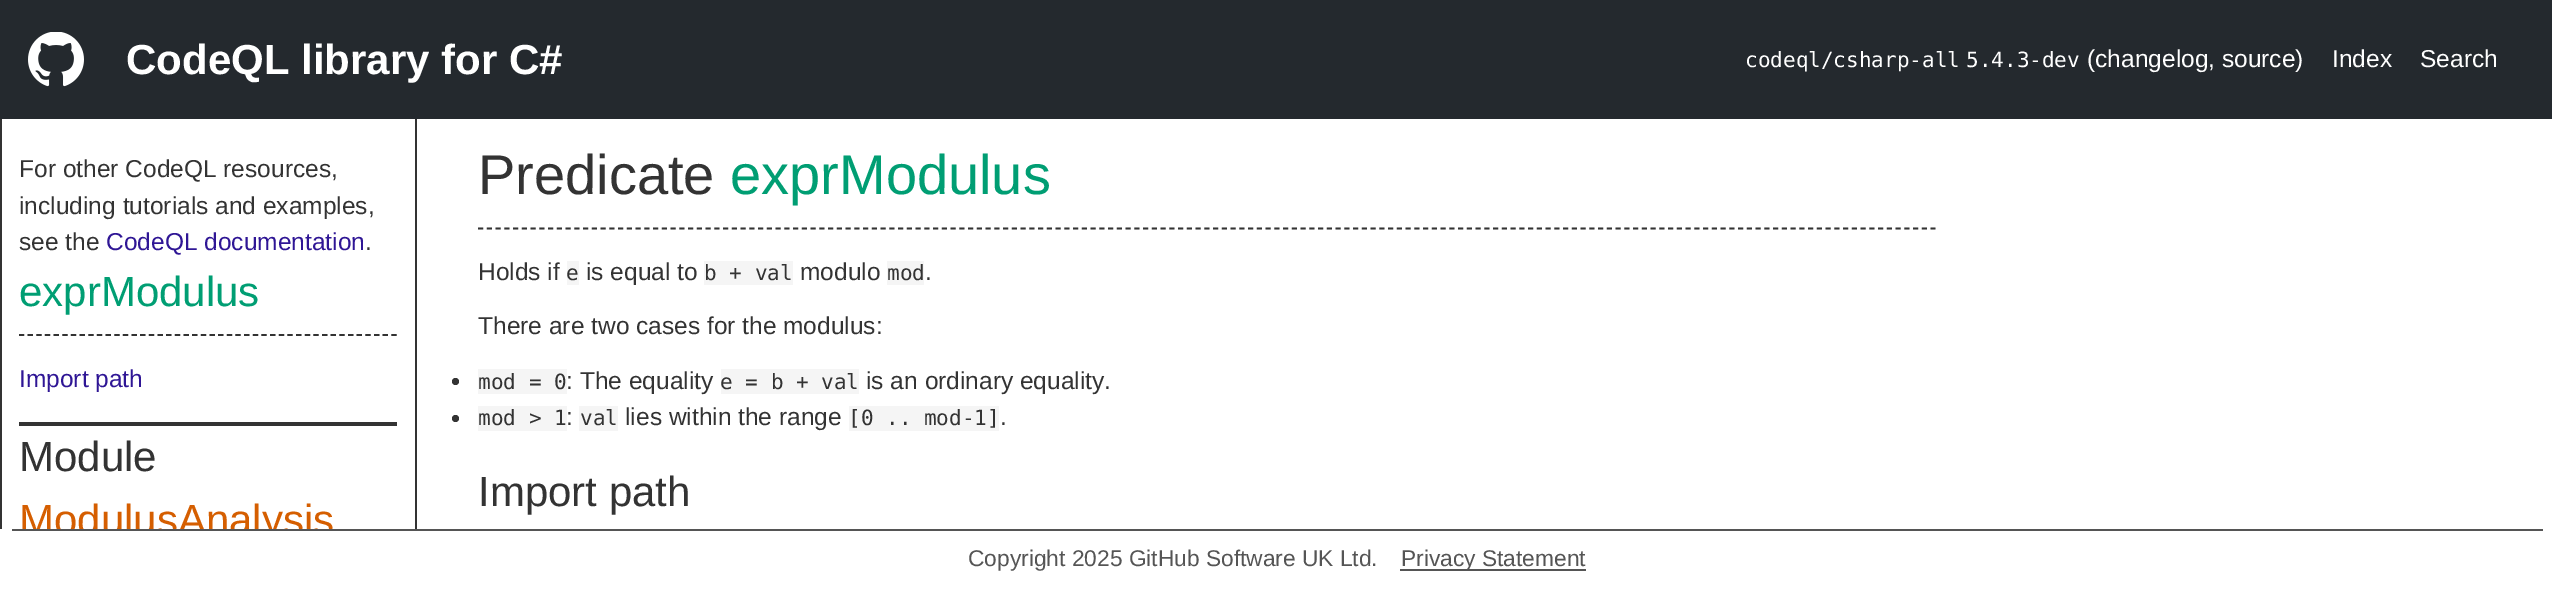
%!PS
<< /PageSize [2552 597] >> setpagedevice
/rgb { 3 { 255 div 3 1 roll } repeat setrgbcolor } def
/font { [ exch dup neg 0 0 3 -1 roll 0 0 ] selectfont } def
/circle { newpath 0 360 arc closepath } def
/picture { 5 dict begin { /h /w /y /x /name } { exch def } forall
  gsave x y translate w h scale
  w h 8 [w 0 0 h 0 0] name (r) file false 3 colorimage grestore end } def
0 597 translate 1 -1 scale
4 setmiterlimit
255 255 255 rgb
0 0 2552 597 rectfill
36 41 46 rgb
0 0 2552 119 rectfill
(img/1.rgb) 28 32 56 55 picture
[
  [415 119 2 410 51 51 51]
  [0 119 2 410 51 51 51]
  [19 422 378 4 51 51 51]
] { aload pop rgb rectfill } forall
1.8 setlinewidth
[5.25 3.41] 0 setdash
19 335 moveto 397 335 lineto stroke
[5.25 3.5] 0 setdash
478 228.5 moveto 1935.5 228.5 lineto stroke
[
  [567 261 12 24 245 245 245]
  [704 261 89 24 245 245 245]
  [887 261 37 24 245 245 245]
] { aload pop rgb rectfill } forall
51 51 51 rgb
455.5 381.5 3.5 circle fill
245 245 245 rgb
478 369 89 25 rectfill
721 369 138 25 rectfill
51 51 51 rgb
455.5 418.5 3.5 circle fill
[
  [478 406 89 25 245 245 245]
  [579 406 39 25 245 245 245]
  [849 406 150 25 245 245 245]
  [12 529 2531 2 85 85 85]
  [1400 569 186 2 85 85 85]
] { aload pop rgb rectfill } forall
/LiberationSans-Bold 42 font
255 255 255 rgb
126 74 moveto (CodeQL library for C#) show
/DejaVuSansMono-Regular 21 font
1745 67 moveto (codeql/csharp-all) show
1966 67 moveto (5.4.3-dev) show
/LiberationSans-Regular 24.5 font
[
  [(\(changelog, source\)) 2087 67]
  [(Index) 2332 67]
  [(Search) 2420 67]
] { aload pop moveto show } forall
51 51 51 rgb
[
  [(For other CodeQL resources,) 19 177]
  [(including tutorials and examples,) 19 214]
  [(see the) 19 250]
] { aload pop moveto show } forall
47 22 149 rgb
106 250 moveto (CodeQL documentation) show
51 51 51 rgb
365 250 moveto (.) show
/LiberationSans-Regular 42 font
0 158 115 rgb
19 306 moveto (exprModulus) show
/LiberationSans-Regular 24.5 font
47 22 149 rgb
19 387 moveto (Import path) show
/LiberationSans-Regular 42 font
51 51 51 rgb
19 471 moveto (Module) show
gsave
2 119 413 410 rectclip
213 94 0 rgb
19 534 moveto (ModulusAnalysis) show
grestore
/LiberationSans-Regular 56 font
478 194 moveto (Predicate) show
0 158 115 rgb
730 194 moveto (exprModulus) show
/LiberationSans-Regular 24.5 font
51 51 51 rgb
478 280 moveto (Holds if) show
/DejaVuSansMono-Regular 21 font
566 280 moveto (e) show
/LiberationSans-Regular 24.5 font
586 280 moveto (is equal to) show
/DejaVuSansMono-Regular 21 font
704 280 moveto (b + val) show
/LiberationSans-Regular 24.5 font
800 280 moveto (modulo) show
/DejaVuSansMono-Regular 21 font
887 280 moveto (mod) show
/LiberationSans-Regular 24.5 font
925 280 moveto (.) show
478 334 moveto (There are two cases for the modulus:) show
/DejaVuSansMono-Regular 21 font
478 389 moveto (mod = 0) show
/LiberationSans-Regular 24.5 font
566 389 moveto (: The equality) show
/DejaVuSansMono-Regular 21 font
720 389 moveto (e = b + val) show
/LiberationSans-Regular 24.5 font
866 389 moveto (is an ordinary equality.) show
/DejaVuSansMono-Regular 21 font
478 425 moveto (mod > 1) show
/LiberationSans-Regular 24.5 font
566 425 moveto (:) show
/DejaVuSansMono-Regular 21 font
580 425 moveto (val) show
/LiberationSans-Regular 24.5 font
625 425 moveto (lies within the range) show
/DejaVuSansMono-Regular 21 font
848 425 moveto ([0 .. mod-1]) show
/LiberationSans-Regular 24.5 font
1000 425 moveto (.) show
/LiberationSans-Regular 42 font
478 506 moveto (Import path) show
/LiberationSans-Regular 22.75 font
85 85 85 rgb
968 566 moveto (Copyright 2025 GitHub Software UK Ltd.) show
1401 566 moveto (Privacy Statement) show
showpage
